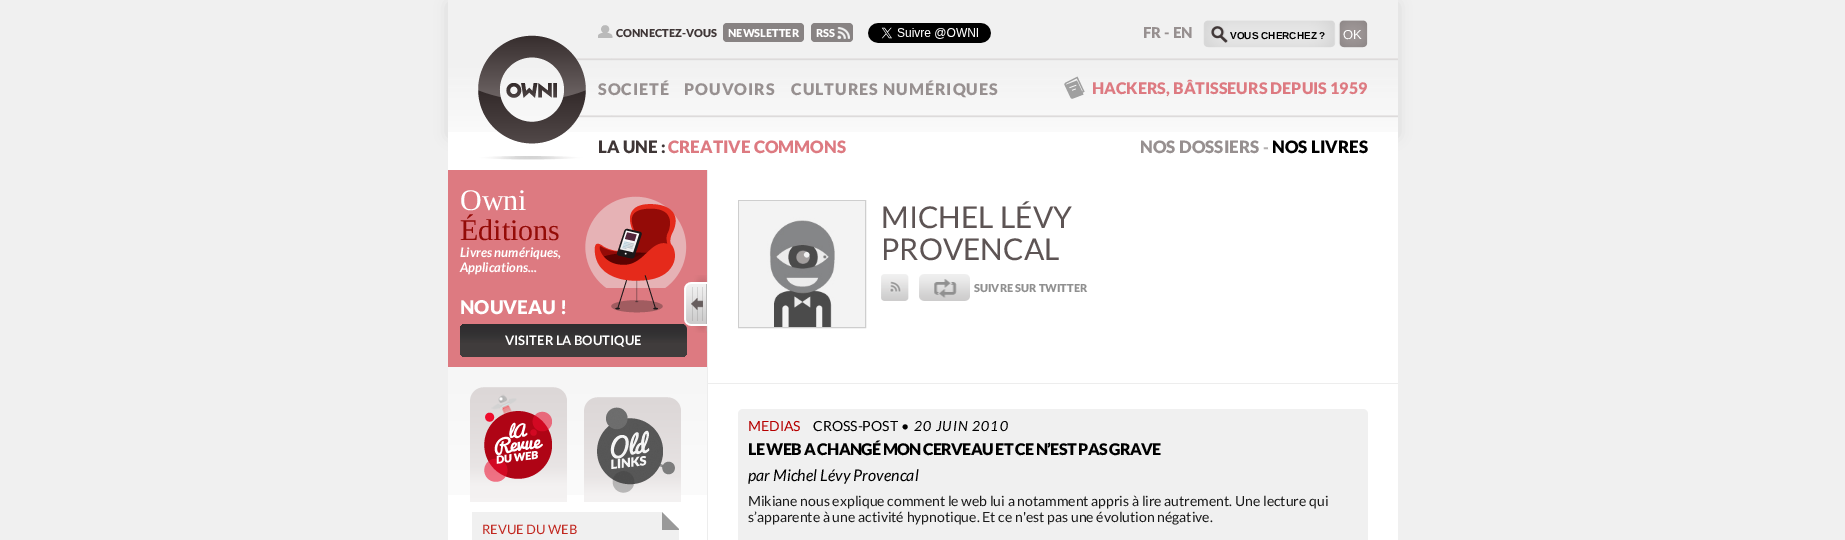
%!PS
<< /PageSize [1845 540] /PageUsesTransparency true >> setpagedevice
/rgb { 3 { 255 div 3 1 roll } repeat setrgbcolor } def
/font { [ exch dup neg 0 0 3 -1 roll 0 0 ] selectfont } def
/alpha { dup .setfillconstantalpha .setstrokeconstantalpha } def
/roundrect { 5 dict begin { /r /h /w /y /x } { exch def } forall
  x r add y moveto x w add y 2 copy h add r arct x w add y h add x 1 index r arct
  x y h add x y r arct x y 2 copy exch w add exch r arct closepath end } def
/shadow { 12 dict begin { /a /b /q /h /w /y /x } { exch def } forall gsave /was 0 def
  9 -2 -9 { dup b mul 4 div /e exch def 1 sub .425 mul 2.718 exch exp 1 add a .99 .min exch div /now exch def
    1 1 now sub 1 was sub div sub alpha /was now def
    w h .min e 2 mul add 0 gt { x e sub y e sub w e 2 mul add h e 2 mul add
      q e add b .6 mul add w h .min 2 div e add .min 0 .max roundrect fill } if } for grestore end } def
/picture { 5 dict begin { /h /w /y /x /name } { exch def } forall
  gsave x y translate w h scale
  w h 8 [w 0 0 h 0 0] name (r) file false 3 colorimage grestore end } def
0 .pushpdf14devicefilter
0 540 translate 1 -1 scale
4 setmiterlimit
240 240 240 rgb
0 0 1845 540 rectfill
207 207 207 rgb
450 5 475 130 0 7.5 1 shadow
921 5 475 130 0 7.5 1 shadow
255 255 255 rgb
448 132 950 408 rectfill
(img/1.rgb) 448 0 950 132 picture
(img/2.rgb) 598 25 15 13 picture
136 131 131 rgb
723 23 81 19 4 roundrect fill
811 23 42 19 4 roundrect fill
(img/3.rgb) 837 27 13 12 picture
(img/4.rgb) 868 23 123 20 picture
(img/5.rgb) 1203 20 165 28 picture
(img/7.rgb) 575 58 823 60 picture
(img/6.rgb) 478 35 108 125 picture
(img/8.rgb) 1064 76 21 23 picture
(img/9.rgb) 448 367 259 128 picture
237 237 237 rgb
707 170 1 370 rectfill
221 122 129 rgb
448 170 259 197 rectfill
(img/10.rgb) 585 196 102 117 picture
gsave 460 324 227 33 5 roundrect clip newpath
<< /ShadingType 2 /ColorSpace /DeviceRGB /Coords [687 357 687 324] /Extend [true true] /Function << /FunctionType 3 /Domain [0 1] /Functions [<< /FunctionType 2 /Domain [0 1] /C0 [0.251 0.235 0.235] /C1 [0.251 0.235 0.235] /N 1 >> << /FunctionType 2 /Domain [0 1] /C0 [0.251 0.235 0.235] /C1 [0.2 0.196 0.2] /N 1 >> << /FunctionType 2 /Domain [0 1] /C0 [0.2 0.196 0.2] /C1 [0.18 0.173 0.18] /N 1 >> << /FunctionType 2 /Domain [0 1] /C0 [0.18 0.173 0.18] /C1 [0.18 0.173 0.18] /N 1 >>] /Bounds [0.42 0.67 0.98] /Encode [0 1 0 1 0 1 0 1] >> >> shfill grestore
(img/11.rgb) 470 387 97 115 picture
(img/12.rgb) 584 397 97 105 picture
240 240 240 rgb
472 512 207 28 rectfill
(img/13.rgb) 662 512 17 18 picture
206 206 206 rgb
738.5 200.5 127 127 rectstroke
(img/14.rgb) 739 201 126 126 picture
(img/15.rgb) 881 274 28 27 picture
(img/16.rgb) 919 274 51 27 picture
(img/17.rgb) 684 275 24 58 picture
237 237 237 rgb
708 383 690 1 rectfill
240 240 240 rgb
738 409 630 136 5 roundrect fill
/Lato-Black 11 font
63 54 54 rgb
616 37 moveto (CONNECTEZ-VOUS) show
255 255 255 rgb
728 37 moveto (NEWSLETTER) show
816 37 moveto (RSS) show
/Lato-Black 15 font
151 144 144 rgb
1143 38 moveto (FR - EN) show
/LiberationSans-Bold 10 font
0 0 0 rgb
1230 39 moveto (VOUS CHERCHEZ ?) show
/LiberationSans-Regular 13 font
255 255 255 rgb
1343 39 moveto (OK) show
/Lato-Black 16 font
151 144 144 rgb
598 95 moveto 1 0 (SOCIETÉ) ashow
684 95 moveto 1 0 (POUVOIRS) ashow
791 95 moveto 1 0 (CULTURES NUMÉRIQUES) ashow
221 122 129 rgb
1092 94 moveto (HACKERS, BÂTISSEURS DEPUIS 1959) show
/Lato-Black 17 font
63 54 54 rgb
598 153 moveto (LA UNE :) show
221 122 129 rgb
668 153 moveto (CREATIVE COMMONS) show
151 144 144 rgb
1140 153 moveto (NOS DOSSIERS) show
/Lato-Black 16 font
180 177 177 rgb
1263 153 moveto (-) show
/Lato-Black 17 font
0 0 0 rgb
1272 153 moveto (NOS LIVRES) show
/LiberationSerif-Regular 30 font
255 255 255 rgb
460 210 moveto (Owni) show
148 11 7 rgb
460 240 moveto (Éditions) show
/Lato-BoldItalic 13 font
255 255 255 rgb
460 257 moveto (Livres numériques,) show
460 272 moveto (Applications...) show
/Lato-Black 19 font
460 314 moveto (NOUVEAU !) show
/Lato-Bold 13 font
505 345 moveto (VISITER LA BOUTIQUE) show
/Lato-Regular 13 font
193 39 31 rgb
482 534 moveto (REVUE DU WEB) show
/Lato-Regular 30 font
93 84 84 rgb
881 228 moveto (MICHEL LÉVY) show
881 260 moveto (PROVENCAL) show
/Lato-Black 11 font
144 144 144 rgb
974 292 moveto (SUIVRE SUR TWITTER) show
/Lato-Regular 14 font
182 0 0 rgb
748 431 moveto (MEDIAS) show
0 0 0 rgb
813 431 moveto (CROSS-POST) show
/Lato-Italic 14 font
901 431 moveto 1 0 (• 20 JUIN 2010) ashow
/Lato-Black 16 font
748 455 moveto -0.65 0 (LE WEB A CHANGÉ MON CERVEAU ET CE N’EST PAS GRAVE) ashow
/Lato-Italic 16 font
748 481 moveto (par Michel Lévy Provencal) show
/Lato-Regular 14 font
26 26 26 rgb
748 506 moveto (Mikiane nous explique comment le web lui a notamment appris à lire autrement. Une lecture qui) show
748 522 moveto (s’apparente à une activité hypnotique. Et ce n'est pas une évolution négative.) show
.poppdf14devicefilter showpage
